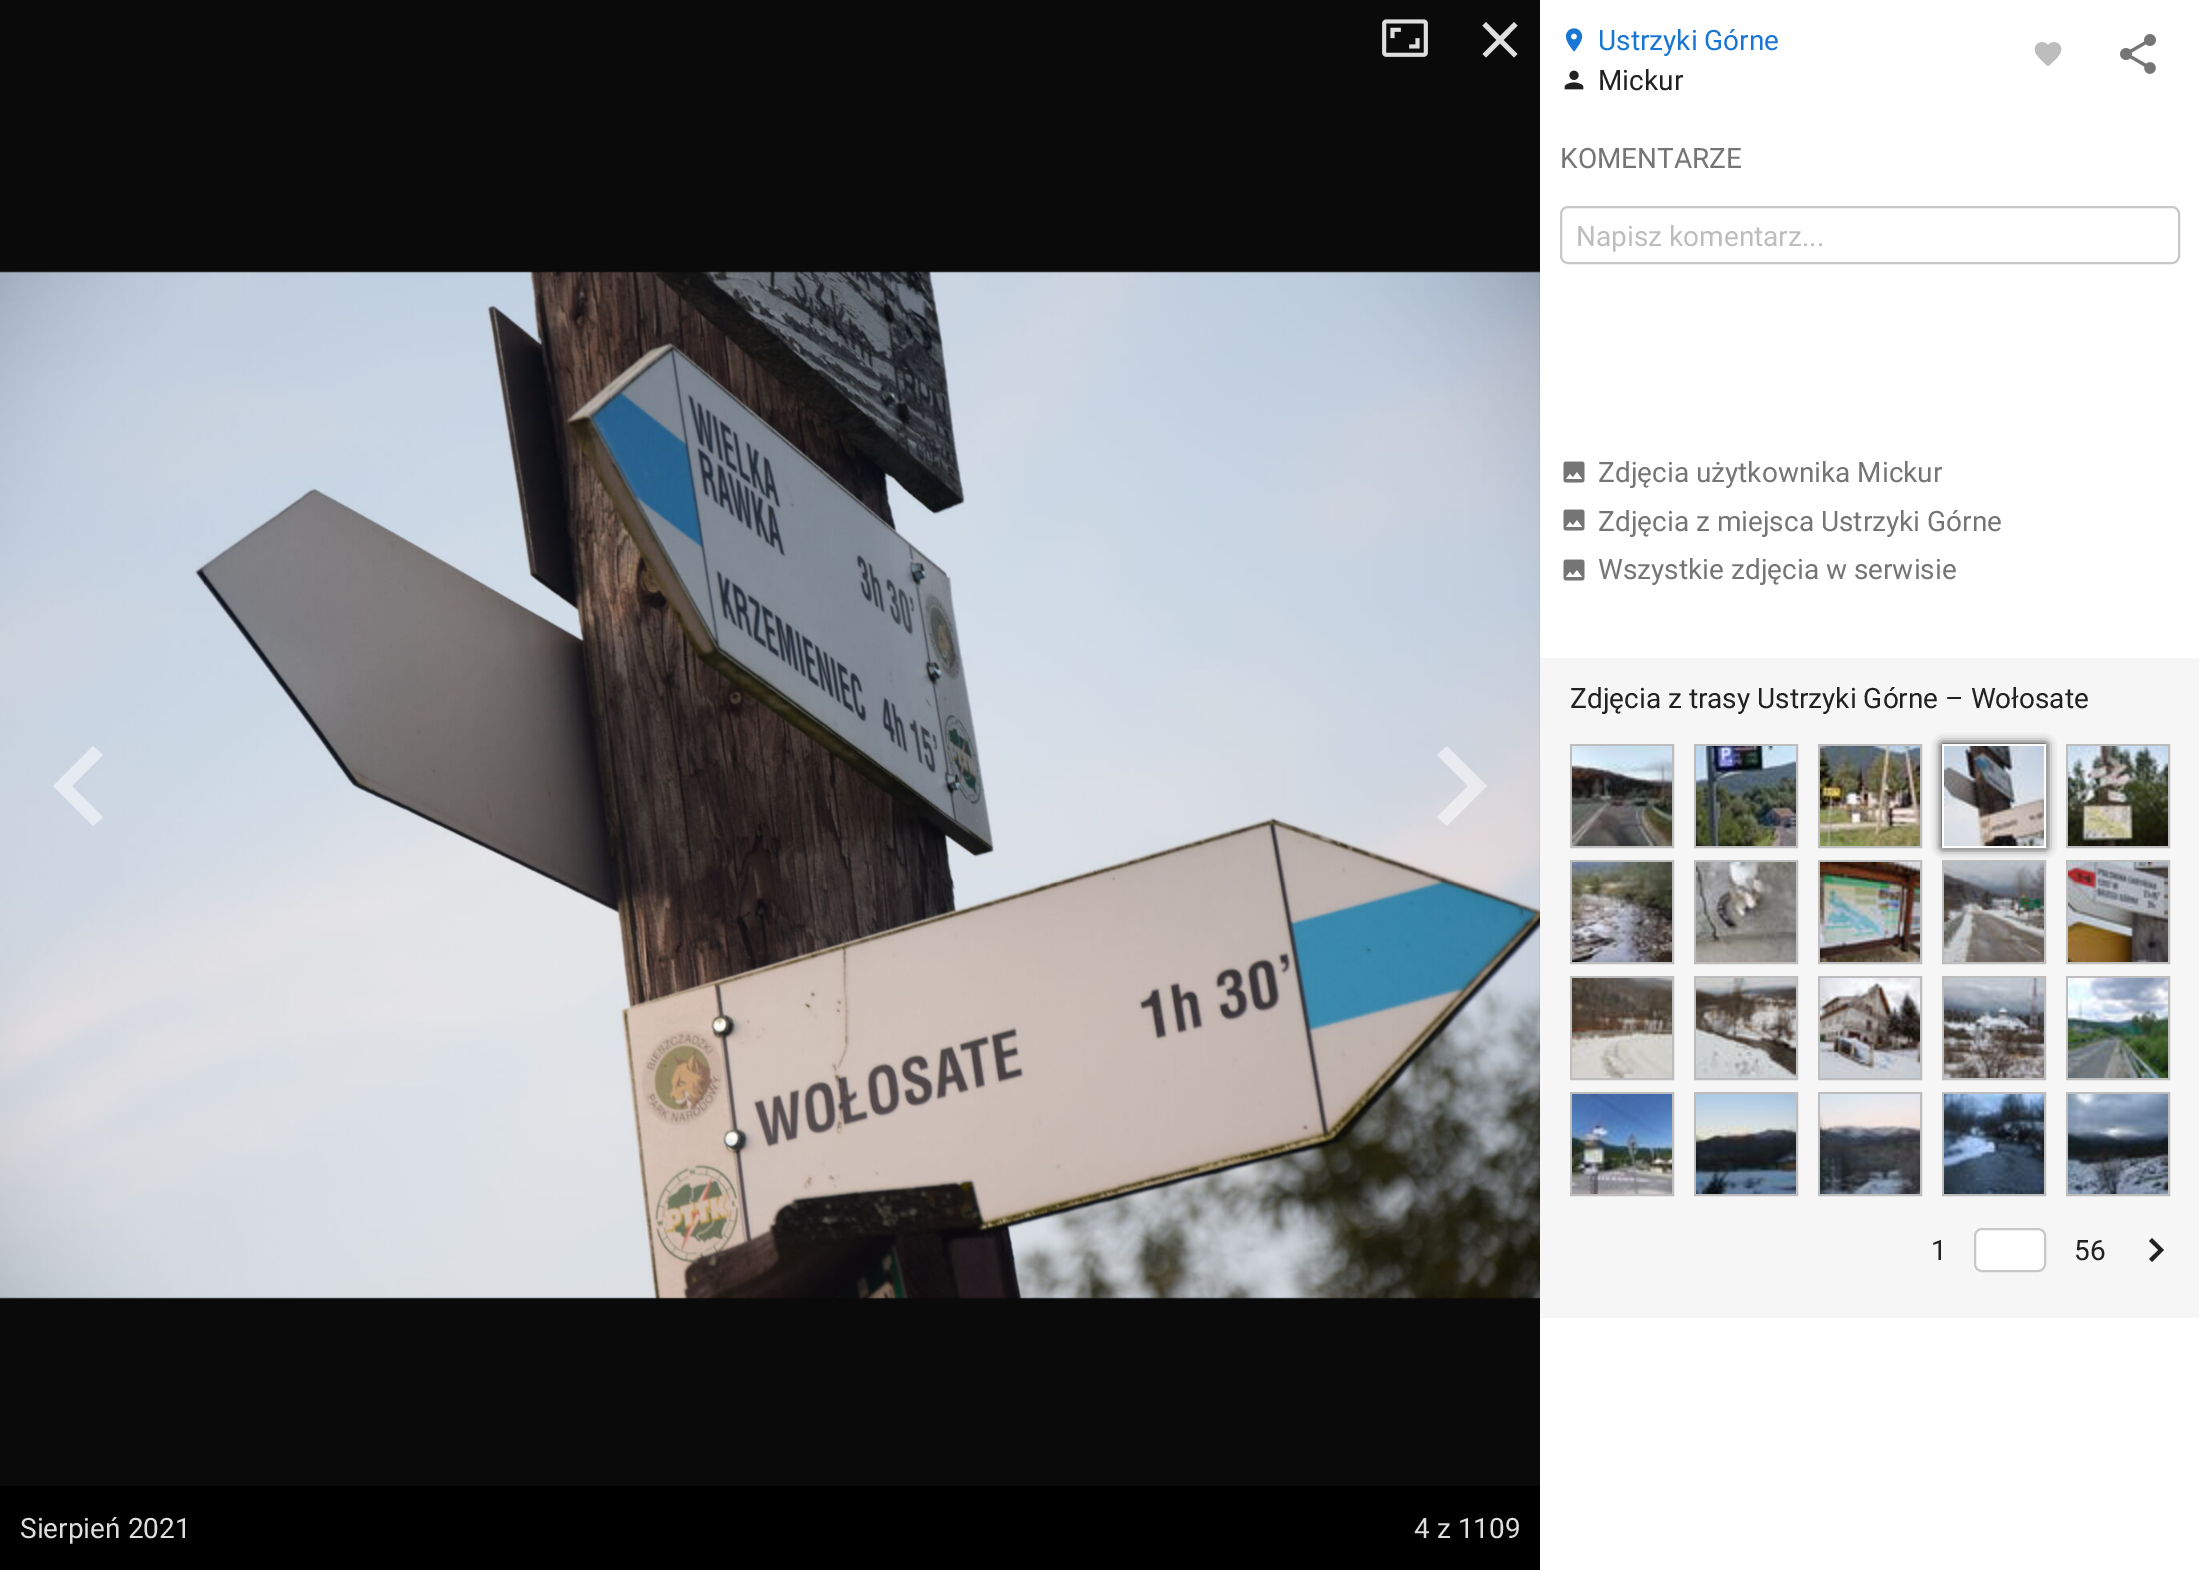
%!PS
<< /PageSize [2199 1570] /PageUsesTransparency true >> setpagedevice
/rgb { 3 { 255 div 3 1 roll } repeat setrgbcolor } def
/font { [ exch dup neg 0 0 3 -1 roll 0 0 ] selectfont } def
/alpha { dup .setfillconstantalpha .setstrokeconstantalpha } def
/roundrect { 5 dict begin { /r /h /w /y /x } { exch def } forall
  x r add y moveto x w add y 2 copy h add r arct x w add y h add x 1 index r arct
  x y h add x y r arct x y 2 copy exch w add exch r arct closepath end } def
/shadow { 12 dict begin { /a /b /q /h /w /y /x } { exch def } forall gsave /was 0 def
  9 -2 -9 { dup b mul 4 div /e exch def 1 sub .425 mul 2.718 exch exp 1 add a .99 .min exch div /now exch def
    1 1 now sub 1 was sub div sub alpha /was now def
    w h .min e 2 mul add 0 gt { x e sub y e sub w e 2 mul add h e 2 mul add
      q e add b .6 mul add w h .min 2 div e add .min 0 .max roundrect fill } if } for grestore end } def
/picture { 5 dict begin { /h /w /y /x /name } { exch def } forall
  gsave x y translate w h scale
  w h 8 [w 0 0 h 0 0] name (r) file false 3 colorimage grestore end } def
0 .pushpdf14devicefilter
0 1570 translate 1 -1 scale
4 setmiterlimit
10 10 10 rgb
0 0 2199 1570 rectfill
255 255 255 rgb
1540 0 659 1570 rectfill
(img/1.rgb) 1565 28 18 24 picture
(img/2.rgb) 1564 70 20 20 picture
(img/3.rgb) 2034 42 28 25 picture
(img/4.rgb) 2120 34 36 40 picture
200 200 200 rgb
2 setlinewidth
1561 207 618 56 7 roundrect stroke
(img/5.rgb) 1563 461 22 22 picture
(img/5.rgb) 1563 509 22 22 picture
(img/5.rgb) 1563 559 22 22 picture
246 246 246 rgb
1540 658 659 660 rectfill
189 189 189 rgb
1571 745 102 102 rectstroke
(img/6.rgb) 1572 746 100 100 picture
1695 745 102 102 rectstroke
(img/7.rgb) 1696 746 100 100 picture
1819 745 102 102 rectstroke
(img/8.rgb) 1820 746 100 100 picture
0 0 0 rgb
1942 744 104 104 0 5 1 shadow
255 255 255 rgb
1943 745 102 102 rectstroke
(img/9.rgb) 1944 746 100 100 picture
189 189 189 rgb
2067 745 102 102 rectstroke
(img/10.rgb) 2068 746 100 100 picture
1571 861 102 102 rectstroke
(img/11.rgb) 1572 862 100 100 picture
1695 861 102 102 rectstroke
(img/12.rgb) 1696 862 100 100 picture
1819 861 102 102 rectstroke
(img/13.rgb) 1820 862 100 100 picture
1943 861 102 102 rectstroke
(img/14.rgb) 1944 862 100 100 picture
2067 861 102 102 rectstroke
(img/15.rgb) 2068 862 100 100 picture
1571 977 102 102 rectstroke
(img/16.rgb) 1572 978 100 100 picture
1695 977 102 102 rectstroke
(img/17.rgb) 1696 978 100 100 picture
1819 977 102 102 rectstroke
(img/18.rgb) 1820 978 100 100 picture
1943 977 102 102 rectstroke
(img/19.rgb) 1944 978 100 100 picture
2067 977 102 102 rectstroke
(img/20.rgb) 2068 978 100 100 picture
1571 1093 102 102 rectstroke
(img/21.rgb) 1572 1094 100 100 picture
1695 1093 102 102 rectstroke
(img/22.rgb) 1696 1094 100 100 picture
1819 1093 102 102 rectstroke
(img/23.rgb) 1820 1094 100 100 picture
1943 1093 102 102 rectstroke
(img/24.rgb) 1944 1094 100 100 picture
2067 1093 102 102 rectstroke
(img/25.rgb) 2068 1094 100 100 picture
255 255 255 rgb
1975 1229 70 42 7 roundrect gsave fill grestore
200 200 200 rgb
stroke
33 33 33 rgb
2149 1259 moveto 2158.5 1250 lineto 2149 1241 lineto 2152 1238 lineto 2164 1250 lineto 2152 1262 lineto closepath fill
(img/26.rgb) 1382 19 46 38 picture
223 223 223 rgb
1517.5 25.5 moveto 1514 22 lineto 1500 36 lineto 1486 22 lineto 1482.5 25.5 lineto 1496.5 40 lineto 1482.5 54 lineto 1486 57.5 lineto 1500 43.5 lineto 1514 57.5 lineto 1517.5 54 lineto 1503.5 40 lineto closepath fill
(img/27.rgb) 0 271 1540 1028 picture
0.5 alpha
255 255 255 rgb
103 755 moveto 93 746 lineto 53 786 lineto 93 826 lineto 103 817 lineto 72 786 lineto closepath fill
1447 746 moveto 1437 755 lineto 1468 786 lineto 1437 817 lineto 1447 826 lineto 1487 786 lineto closepath fill
1 alpha
0 0 0 rgb
0 1486 1540 84 rectfill
/Roboto-Regular 28 font
25 118 210 rgb
1598 50 moveto (Ustrzyki Górne) show
33 33 33 rgb
1598 90 moveto (Mickur) show
117 117 117 rgb
1560 168 moveto (KOMENTARZE) show
189 189 189 rgb
1576 246 moveto (Napisz komentarz...) show
117 117 117 rgb
[
  [(Zdjęcia użytkownika Mickur) 1598 482]
  [(Zdjęcia z miejsca Ustrzyki Górne) 1598 531]
  [(Wszystkie zdjęcia w serwisie) 1598 579]
] { aload pop moveto show } forall
33 33 33 rgb
[
  [(Zdjęcia z trasy Ustrzyki Górne – Wołosate) 1570 708]
  [(1) 1931 1260]
  [(56) 2074 1260]
] { aload pop moveto show } forall
222 222 222 rgb
20 1538 moveto (Sierpień 2021) show
1414 1538 moveto (4 z 1109) show
.poppdf14devicefilter showpage
